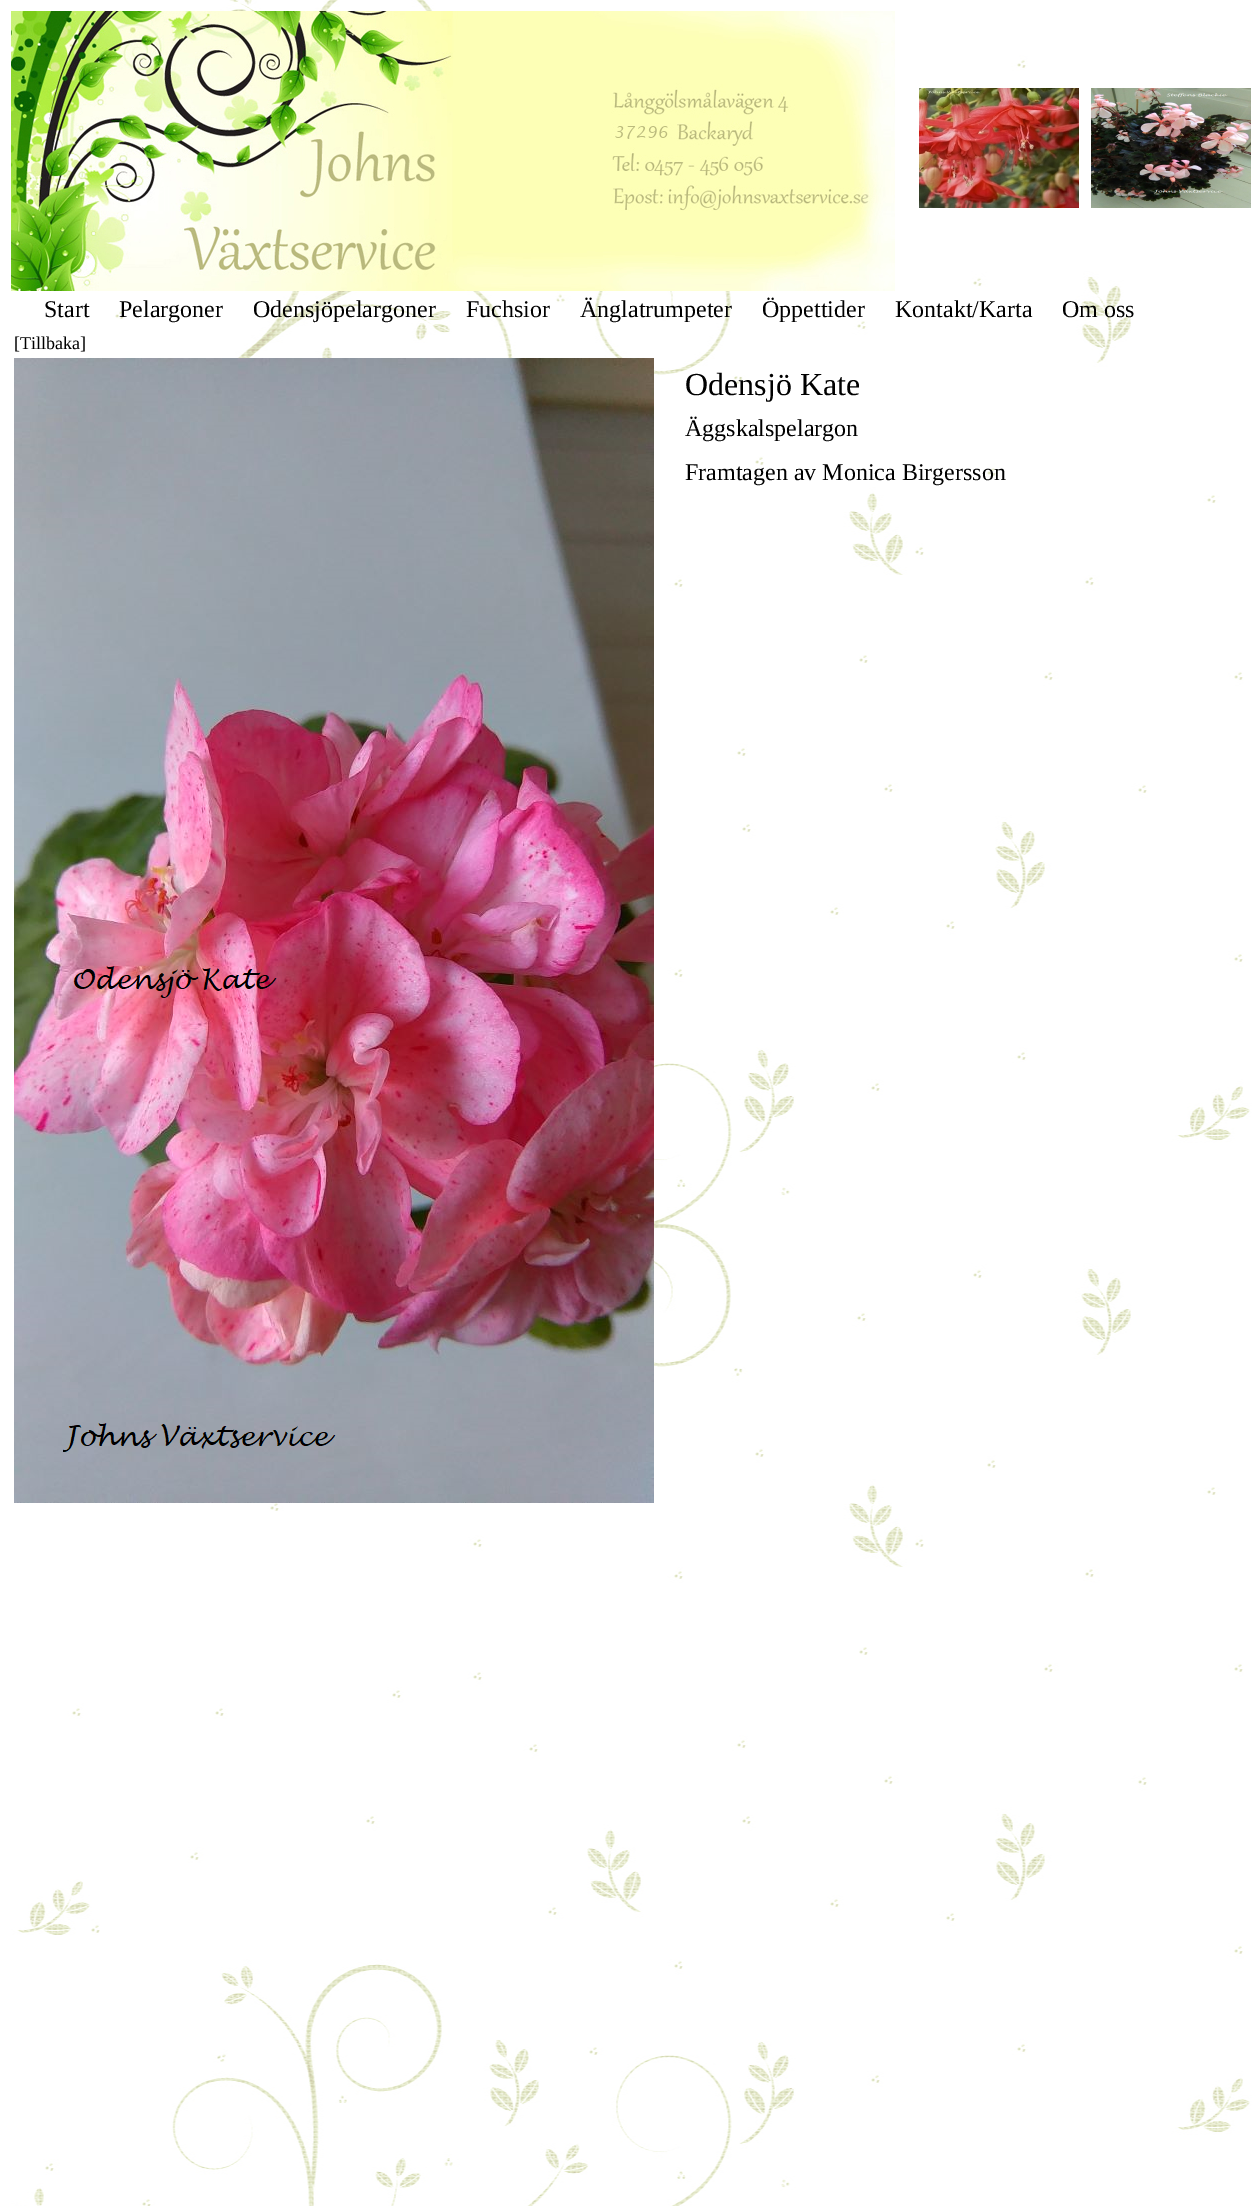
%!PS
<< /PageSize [1259 2206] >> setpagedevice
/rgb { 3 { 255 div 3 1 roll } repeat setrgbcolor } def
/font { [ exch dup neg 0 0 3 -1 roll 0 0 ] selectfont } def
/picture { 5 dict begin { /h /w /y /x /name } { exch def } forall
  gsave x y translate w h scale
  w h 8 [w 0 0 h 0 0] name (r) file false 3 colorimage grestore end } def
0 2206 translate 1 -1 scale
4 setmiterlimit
255 255 255 rgb
0 0 1259 2206 rectfill
(img/1.rgb) 0 0 1259 2206 picture
(img/2.rgb) 11 11 884 280 picture
(img/3.rgb) 919 88 160 120 picture
(img/4.rgb) 1091 88 160 120 picture
(img/5.rgb) 14 358 640 1145 picture
/LiberationSerif-Regular 24 font
0 0 0 rgb
[
  [(Start) 44 317]
  [(Pelargoner) 119 317]
  [(Odensjöpelargoner) 253 317]
  [(Fuchsior) 466 317]
  [(Änglatrumpeter) 580 317]
  [(Öppettider) 762 317]
  [(Kontakt/Karta) 895 317]
  [(Om oss) 1062 317]
] { aload pop moveto show } forall
/LiberationSerif-Regular 18 font
14 349 moveto ([Tillbaka]) show
/LiberationSerif-Regular 32 font
685 395 moveto (Odensjö Kate) show
/LiberationSerif-Regular 24 font
685 436 moveto (Äggskalspelargon) show
685 480 moveto (Framtagen av Monica Birgersson) show
showpage
